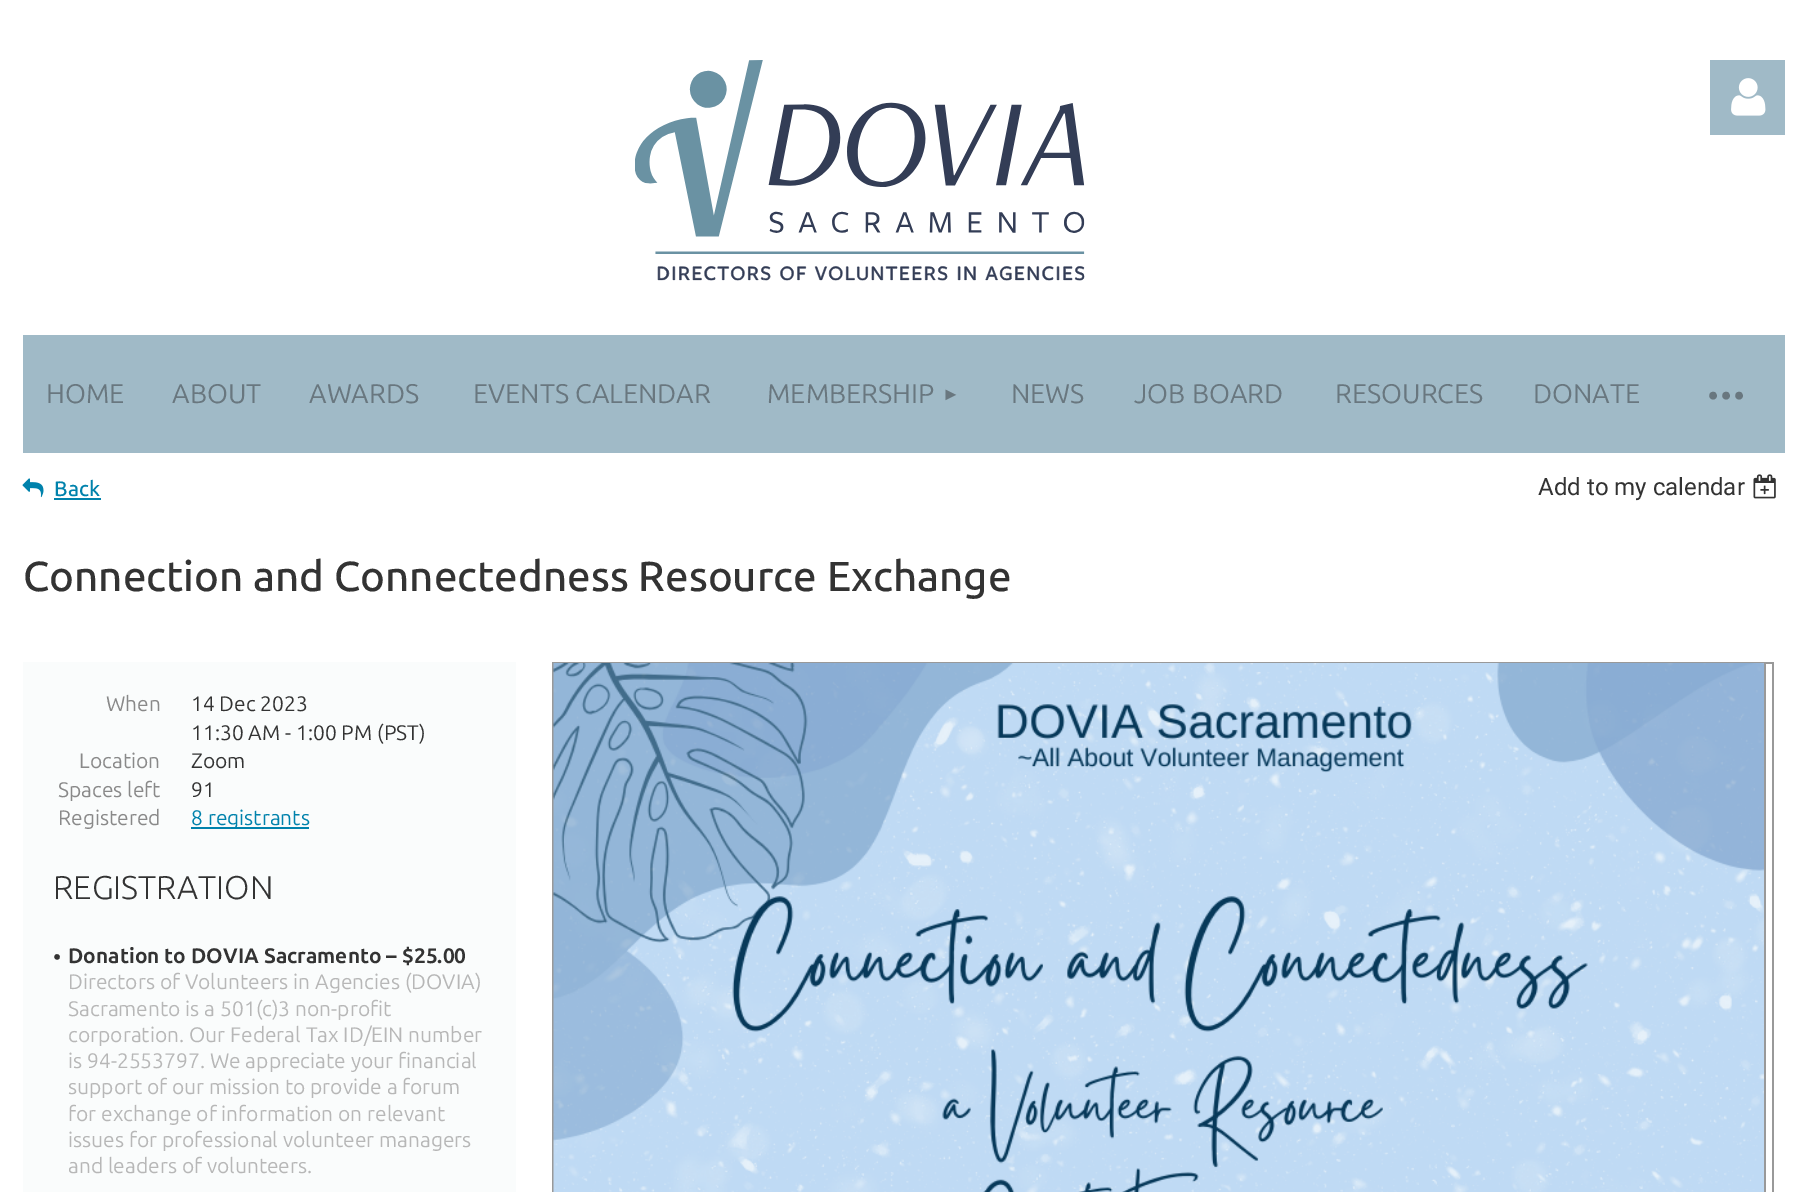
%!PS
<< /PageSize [1807 1192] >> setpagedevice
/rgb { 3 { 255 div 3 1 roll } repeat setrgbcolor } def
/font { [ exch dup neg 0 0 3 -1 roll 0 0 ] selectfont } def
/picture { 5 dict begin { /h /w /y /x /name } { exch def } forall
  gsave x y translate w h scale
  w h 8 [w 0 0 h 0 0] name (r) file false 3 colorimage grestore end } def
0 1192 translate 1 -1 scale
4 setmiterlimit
255 255 255 rgb
0 0 1807 1192 rectfill
(img/1.rgb) 635 60 450 221 picture
160 186 199 rgb
1710 60 75 75 rectfill
(img/2.rgb) 1731 78 35 38 picture
23 335 1762 118 rectfill
(img/3.rgb) 22 478 22 20 picture
0 130 172 rgb
54 498 47 2 rectfill
(img/4.rgb) 1753 474 23 25 picture
[
  [23 662 493 530 250 252 252]
  [191 827 118 2 0 130 172]
  [552 662 1221 2 153 153 153]
  [1772 662 2 530 153 153 153]
  [552 662 2 530 153 153 153]
] { aload pop rgb rectfill } forall
(img/5.rgb) 553 663 1211 529 picture
1764 662 2 530 rectfill
/Ubuntu-Regular 27 font
105 119 127 rgb
[
  [(HOME) 46 403]
  [(ABOUT) 172 403]
  [(AWARDS) 309 403]
  [(EVENTS CALENDAR) 473 403]
  [(MEMBERSHIP) 767 403]
] { aload pop moveto show } forall
/LiberationSans-Regular 18 font
942 400 moveto (►) show
/Ubuntu-Regular 27 font
[
  [(NEWS) 1011 403]
  [(JOB BOARD) 1134 403]
  [(RESOURCES) 1335 403]
  [(DONATE) 1533 403]
] { aload pop moveto show } forall
/Ubuntu-Regular 66 font
1705 415 moveto -3 0 (···) ashow
/Ubuntu-Medium 21 font
0 130 172 rgb
54 496 moveto (Back) show
/Roboto-Regular 24 font
51 51 51 rgb
1538 495 moveto (Add to my calendar) show
/Ubuntu-Medium 42 font
23 591 moveto (Connection and Connectedness Resource Exchange) show
/Ubuntu-Regular 21 font
137 137 137 rgb
106 711 moveto (When) show
51 51 51 rgb
191 711 moveto (14 Dec 2023) show
191 740 moveto (11:30 AM - 1:00 PM \(PST\)) show
137 137 137 rgb
79 768 moveto (Location) show
51 51 51 rgb
191 768 moveto (Zoom) show
137 137 137 rgb
58 797 moveto (Spaces left) show
51 51 51 rgb
191 797 moveto (91) show
137 137 137 rgb
58 825 moveto (Registered) show
0 130 172 rgb
191 825 moveto (8 registrants) show
/Ubuntu-Light 33 font
51 51 51 rgb
53 899 moveto (REGISTRATION) show
/Ubuntu-Regular 23 font
53 965 moveto (•) show
/Ubuntu-Bold 21 font
68 963 moveto (Donation to DOVIA Sacramento – $25.00) show
/Ubuntu-Regular 21 font
183 183 183 rgb
[
  [(Directors of Volunteers in Agencies \(DOVIA\)) 68 989]
  [(Sacramento is a 501\(c\)3 non-profit) 68 1016]
  [(corporation. Our Federal Tax ID/EIN number) 68 1042]
  [(is 94-2553797. We appreciate your financial) 68 1068]
  [(support of our mission to provide a forum) 68 1094]
  [(for exchange of information on relevant) 68 1121]
  [(issues for professional volunteer managers) 68 1147]
  [(and leaders of volunteers.) 68 1173]
] { aload pop moveto show } forall
showpage
